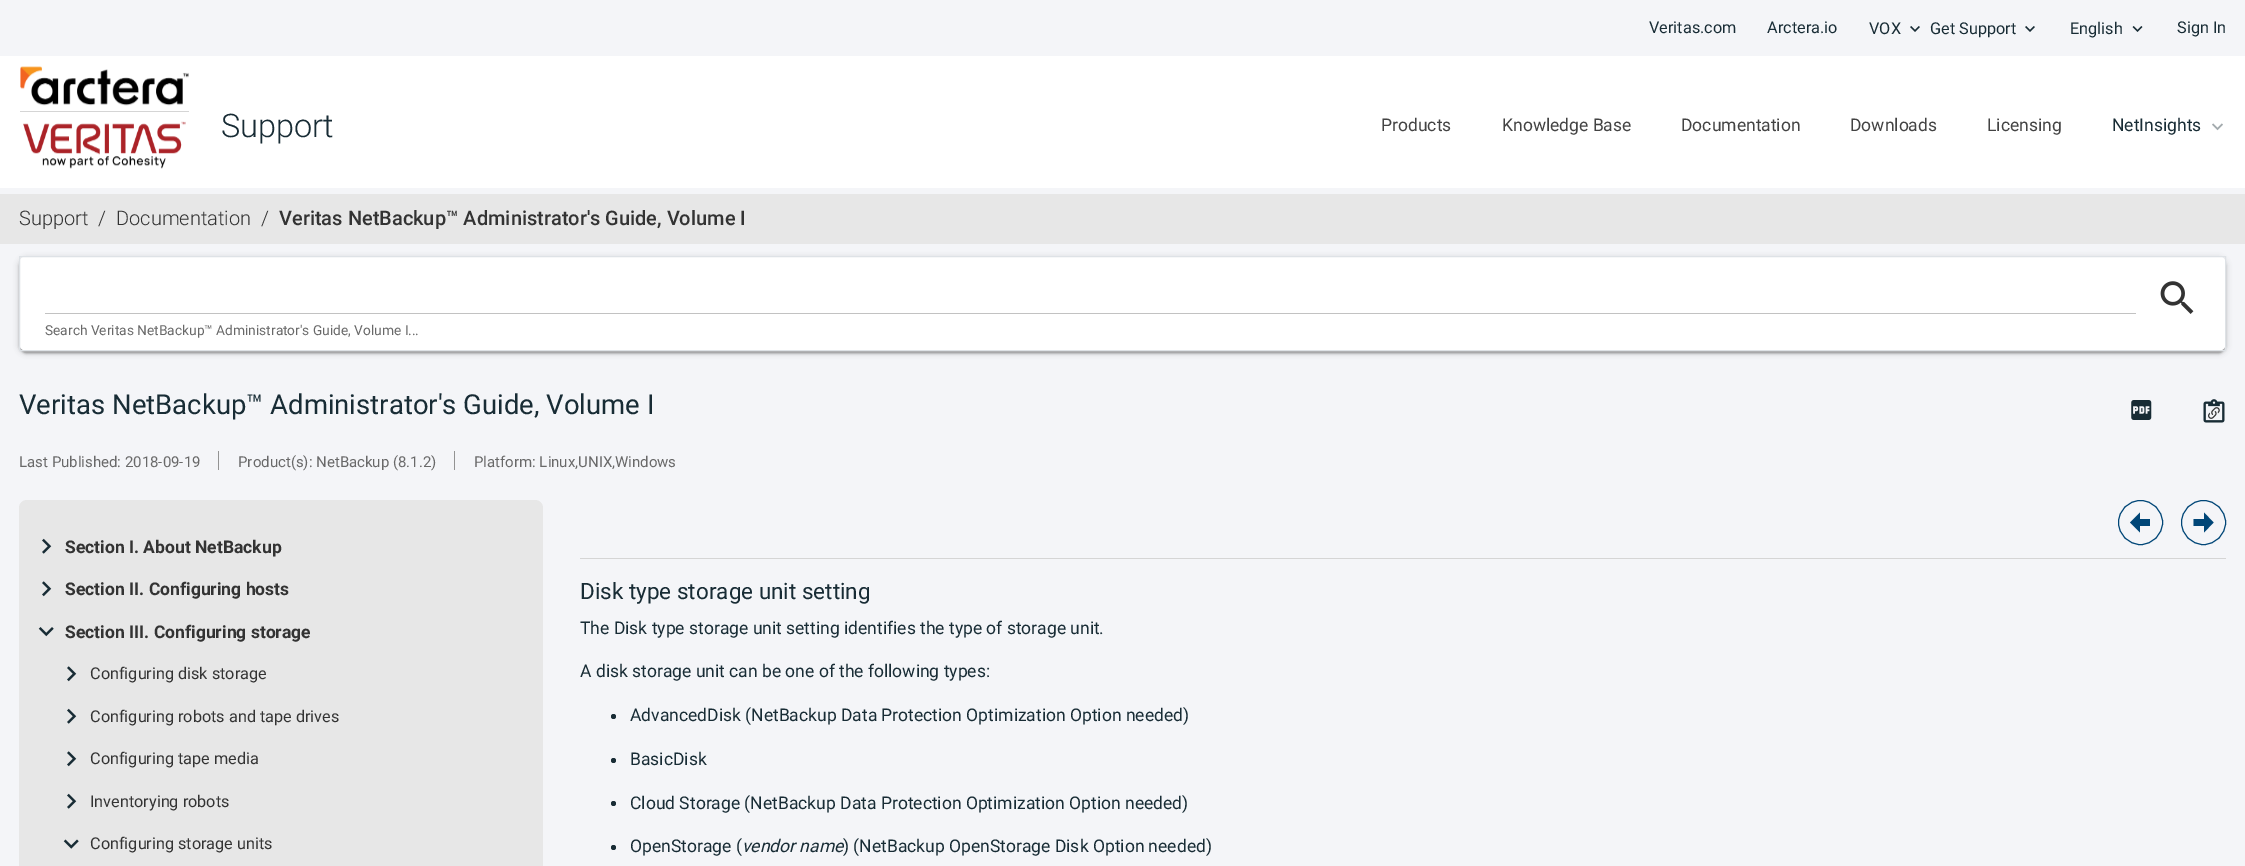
%!PS
<< /PageSize [2245 866] /PageUsesTransparency true >> setpagedevice
/rgb { 3 { 255 div 3 1 roll } repeat setrgbcolor } def
/font { [ exch dup neg 0 0 3 -1 roll 0 0 ] selectfont } def
/alpha { dup .setfillconstantalpha .setstrokeconstantalpha } def
/circle { newpath 0 360 arc closepath } def
/roundrect { 5 dict begin { /r /h /w /y /x } { exch def } forall
  x r add y moveto x w add y 2 copy h add r arct x w add y h add x 1 index r arct
  x y h add x y r arct x y 2 copy exch w add exch r arct closepath end } def
/shadow { 12 dict begin { /a /b /q /h /w /y /x } { exch def } forall gsave /was 0 def
  9 -2 -9 { dup b mul 4 div /e exch def 1 sub .425 mul 2.718 exch exp 1 add a .99 .min exch div /now exch def
    1 1 now sub 1 was sub div sub alpha /was now def
    w h .min e 2 mul add 0 gt { x e sub y e sub w e 2 mul add h e 2 mul add
      q e add b .6 mul add w h .min 2 div e add .min 0 .max roundrect fill } if } for grestore end } def
/picture { 5 dict begin { /h /w /y /x /name } { exch def } forall
  gsave x y translate w h scale
  w h 8 [w 0 0 h 0 0] name (r) file false 3 colorimage grestore end } def
0 .pushpdf14devicefilter
0 866 translate 1 -1 scale
4 setmiterlimit
244 245 248 rgb
0 0 2245 866 rectfill
(img/1.rgb) 1910 26 10 6 picture
(img/1.rgb) 2025 26 10 6 picture
(img/2.rgb) 2132 26 11 6 picture
255 255 255 rgb
0 56 2245 132 rectfill
(img/3.rgb) 20 66 169 40 picture
213 213 213 rgb
20 111 169 1 rectfill
(img/4.rgb) 23 121 163 48 picture
(img/5.rgb) 2212 123 11 8 picture
231 231 231 rgb
0 194 2245 50 rectfill
0 0 0 rgb
21 263 2203 90 5 0.5 0.12 shadow
19 259 2207 95 8 1 0.14 shadow
19 258 2207 95 8 3 0.2 shadow
255 255 255 rgb
19 256 2207 95 8 roundrect fill
222 226 230 rgb
19.5 256.5 2206 94 rectstroke
194 194 194 rgb
45 313 2091 1 rectfill
(img/6.rgb) 2160 281 34 33 picture
(img/7.rgb) 2131 400 21 20 picture
(img/8.rgb) 2203 399 22 24 picture
(img/9.rgb) 2208 407 12 12 picture
147 147 147 rgb
218 451 1 19 rectfill
454 451 1 19 rectfill
231 231 231 rgb
19 500 524 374 8 roundrect fill
(img/10.rgb) 42 538 10 16 picture
(img/11.rgb) 42 581 10 16 picture
(img/12.rgb) 38 627 16 10 picture
(img/11.rgb) 67 666 10 16 picture
(img/10.rgb) 67 708 10 16 picture
(img/11.rgb) 67 751 10 16 picture
(img/10.rgb) 67 793 10 16 picture
(img/13.rgb) 63 839 16 10 picture
213 213 213 rgb
580 558 1646 1 rectfill
0 70 119 rgb
2140.5 522.5 22 circle stroke
2150 519 moveto 2150 526 lineto 2140 526 lineto 2140 532.5 lineto 2130 522.5 lineto 2140 512.5 lineto 2140 519 lineto closepath fill
2203.5 522.5 22 circle stroke
2193.5 526 moveto 2193.5 519 lineto 2204 519 lineto 2204 512.5 lineto 2213.5 522.5 lineto 2204 532.5 lineto 2204 526 lineto closepath fill
24 44 53 rgb
613.5 716.5 2.5 circle fill
613.5 760.5 2.5 circle fill
613.5 803.5 2.5 circle fill
613.5 847.5 2.5 circle fill
/Roboto-Regular 16.25 font
[
  [(Veritas.com) 1649 33]
  [(Arctera.io) 1767 33]
  [(VOX) 1869 34]
  [(Get Support) 1930 34]
  [(English) 2070 34]
  [(Sign In) 2177 33]
] { aload pop moveto show } forall
/Roboto-Light 32.5 font
221 137 moveto (Support) show
/Roboto-Regular 17.5 font
67 67 67 rgb
[
  [(Products) 1381 131]
  [(Knowledge Base) 1502 131]
  [(Documentation) 1681 131]
  [(Downloads) 1850 131]
  [(Licensing) 1987 131]
] { aload pop moveto show } forall
24 44 53 rgb
2112 131 moveto (NetInsights) show
/Roboto-Light 20 font
51 51 51 rgb
[
  [(Support) 19 225]
  [(/) 98 225]
  [(Documentation) 116 225]
  [(/) 261 225]
] { aload pop moveto show } forall
/Roboto-Medium 20 font
279 225 moveto (Veritas NetBackup™ Administrator's Guide, Volume I) show
/Roboto-Regular 13.75 font
105 105 105 rgb
45 335 moveto (Search Veritas NetBackup™ Administrator's Guide, Volume I...) show
/Roboto-Regular 27.5 font
24 44 53 rgb
19 414 moveto (Veritas NetBackup™ Administrator's Guide, Volume I) show
/Roboto-Regular 15 font
105 105 105 rgb
[
  [(Last Published: 2018-09-19) 19 467]
  [(Product\(s\): NetBackup \(8.1.2\)) 238 467]
  [(Platform: Linux,UNIX,Windows) 474 467]
] { aload pop moveto show } forall
/Roboto-Bold 17.5 font
51 51 51 rgb
[
  [(Section I. About NetBackup) 65 553]
  [(Section II. Configuring hosts) 65 595]
  [(Section III. Configuring storage) 65 638]
] { aload pop moveto show } forall
/Roboto-Regular 16.25 font
[
  [(Configuring disk storage) 90 679]
  [(Configuring robots and tape drives) 90 722]
  [(Configuring tape media) 90 764]
  [(Inventorying robots) 90 807]
  [(Configuring storage units) 90 849]
] { aload pop moveto show } forall
/Roboto-Regular 22.5 font
24 44 53 rgb
580 599 moveto (Disk type storage unit setting) show
/Roboto-Regular 17.5 font
[
  [(The Disk type storage unit setting identifies the type of storage unit.) 580 634]
  [(A disk storage unit can be one of the following types:) 580 677]
  [(AdvancedDisk \(NetBackup Data Protection Optimization Option needed\)) 630 721]
  [(BasicDisk) 630 765]
  [(Cloud Storage \(NetBackup Data Protection Optimization Option needed\)) 630 809]
  [(OpenStorage \() 630 852]
] { aload pop moveto show } forall
/Roboto-Italic 17.5 font
742 852 moveto (vendor name) show
/Roboto-Regular 17.5 font
843 852 moveto (\) \(NetBackup OpenStorage Disk Option needed\)) show
.poppdf14devicefilter showpage
